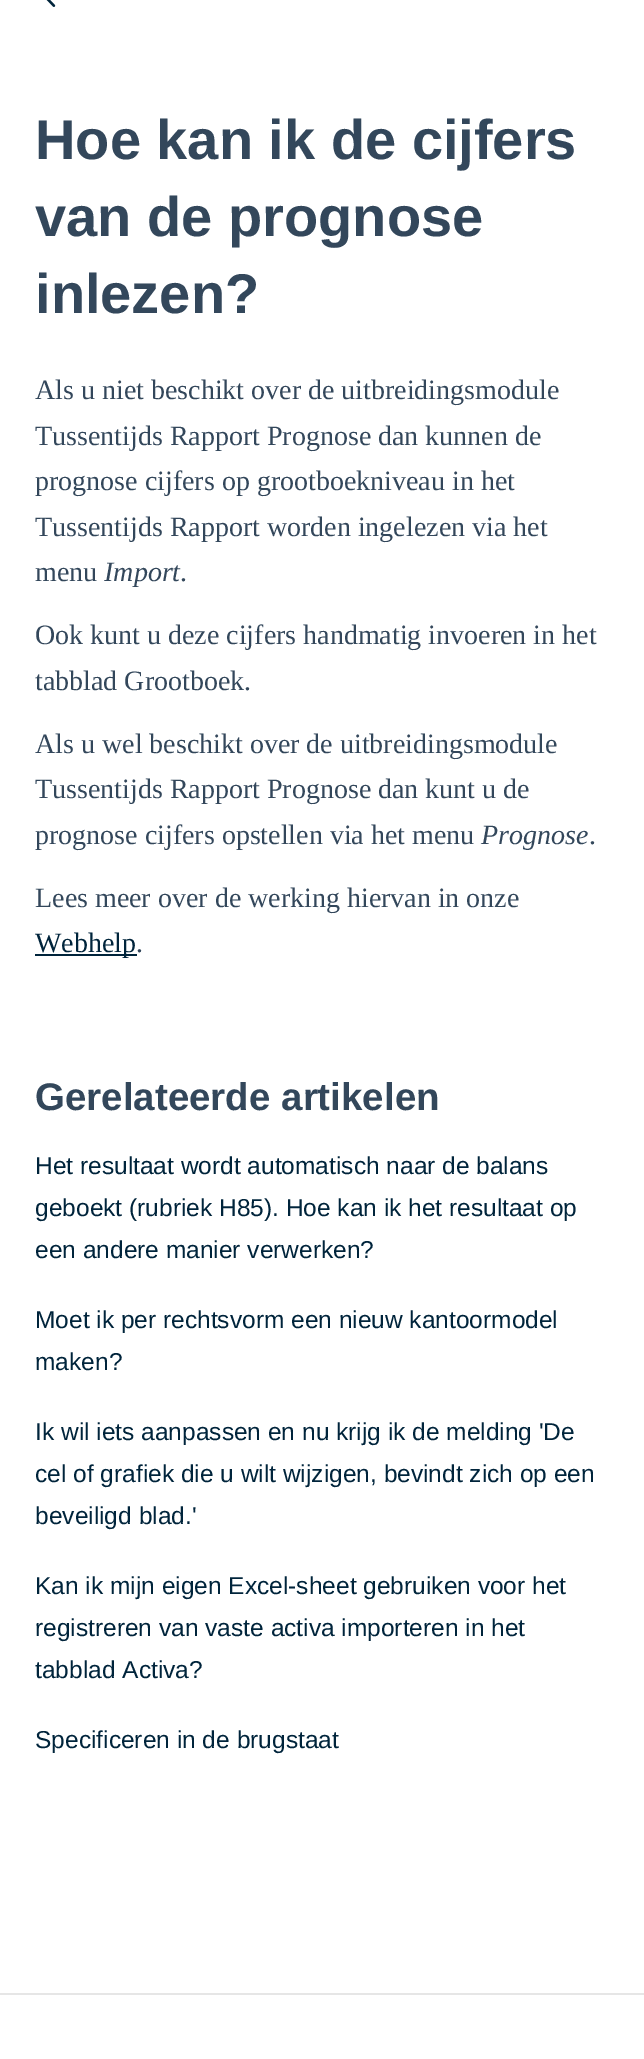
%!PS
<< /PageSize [644 2059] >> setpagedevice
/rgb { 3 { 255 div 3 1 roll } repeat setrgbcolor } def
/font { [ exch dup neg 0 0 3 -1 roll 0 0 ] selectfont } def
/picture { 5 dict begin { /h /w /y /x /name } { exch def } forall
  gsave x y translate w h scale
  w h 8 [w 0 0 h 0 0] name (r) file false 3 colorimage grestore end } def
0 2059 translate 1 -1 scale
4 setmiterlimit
255 255 255 rgb
0 0 644 2059 rectfill
(img/1.rgb) 46 0 10 7 picture
0 36 59 rgb
35 954 102 2 rectfill
230 230 230 rgb
0 1993 644 2 rectfill
/LiberationSans-Bold 56 font
51 71 91 rgb
[
  [(Hoe kan ik de cijfers) 35 159]
  [(van de prognose) 35 236]
  [(inlezen?) 35 313]
] { aload pop moveto show } forall
/LiberationSerif-Regular 28 font
[
  [(Als u niet beschikt over de uitbreidingsmodule) 35 399]
  [(Tussentijds Rapport Prognose dan kunnen de) 35 445]
  [(prognose cijfers op grootboekniveau in het) 35 490]
  [(Tussentijds Rapport worden ingelezen via het) 35 536]
  [(menu) 35 581]
] { aload pop moveto show } forall
/LiberationSerif-Italic 28 font
104 581 moveto (Import) show
/LiberationSerif-Regular 28 font
[
  [(.) 180 581]
  [(Ook kunt u deze cijfers handmatig invoeren in het) 35 644]
  [(tabblad Grootboek.) 35 690]
  [(Als u wel beschikt over de uitbreidingsmodule) 35 753]
  [(Tussentijds Rapport Prognose dan kunt u de) 35 798]
  [(prognose cijfers opstellen via het menu) 35 844]
] { aload pop moveto show } forall
/LiberationSerif-Italic 28 font
481 844 moveto (Prognose) show
/LiberationSerif-Regular 28 font
589 844 moveto (.) show
35 907 moveto (Lees meer over de werking hiervan in onze) show
0 36 59 rgb
35 952 moveto (Webhelp) show
51 71 91 rgb
136 952 moveto (.) show
/LiberationSans-Bold 38.5 font
35 1110 moveto (Gerelateerde artikelen) show
/LiberationSans-Regular 24.5 font
0 36 59 rgb
[
  [(Het resultaat wordt automatisch naar de balans) 35 1174]
  [(geboekt \(rubriek H85\). Hoe kan ik het resultaat op) 35 1216]
  [(een andere manier verwerken?) 35 1258]
  [(Moet ik per rechtsvorm een nieuw kantoormodel) 35 1328]
  [(maken?) 35 1370]
  [(Ik wil iets aanpassen en nu krijg ik de melding 'De) 35 1440]
  [(cel of grafiek die u wilt wijzigen, bevindt zich op een) 35 1482]
  [(beveiligd blad.') 35 1524]
  [(Kan ik mijn eigen Excel-sheet gebruiken voor het) 35 1594]
  [(registreren van vaste activa importeren in het) 35 1636]
  [(tabblad Activa?) 35 1678]
  [(Specificeren in de brugstaat) 35 1748]
] { aload pop moveto show } forall
showpage
